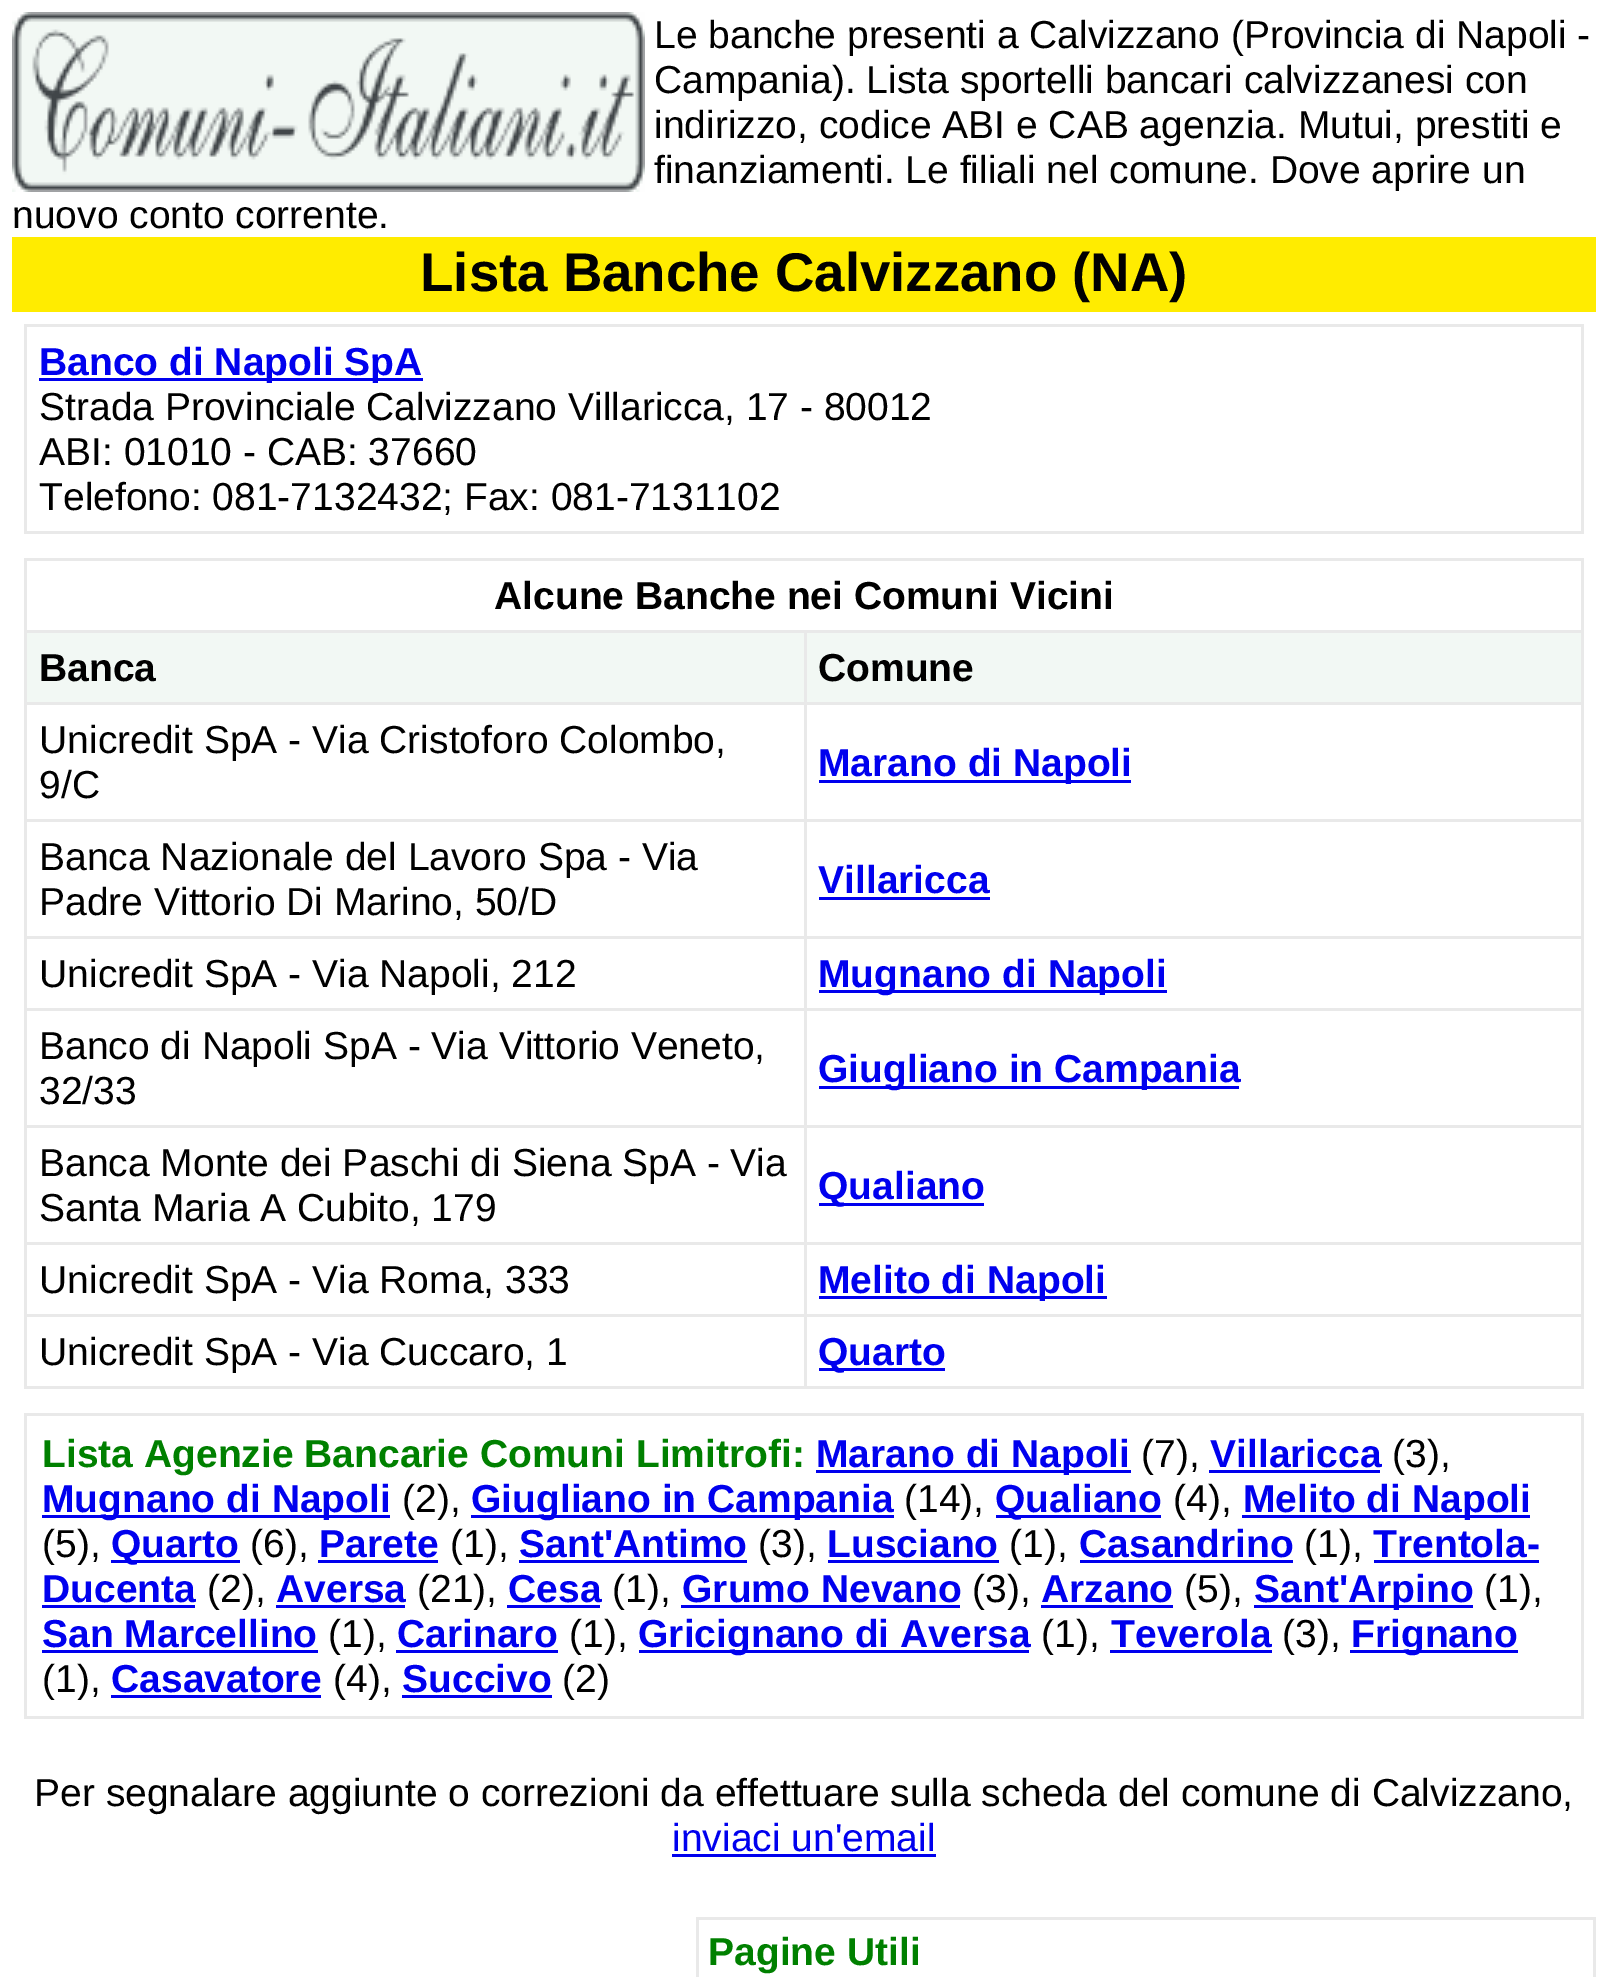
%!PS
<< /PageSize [1607 1977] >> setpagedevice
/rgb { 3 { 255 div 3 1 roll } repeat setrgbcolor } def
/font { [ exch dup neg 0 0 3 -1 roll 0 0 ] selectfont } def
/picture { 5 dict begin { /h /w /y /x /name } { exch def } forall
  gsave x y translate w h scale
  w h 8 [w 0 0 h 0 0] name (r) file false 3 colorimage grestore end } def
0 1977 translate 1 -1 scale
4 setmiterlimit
255 255 255 rgb
0 0 1607 1977 rectfill
(img/1.rgb) 12 12 633 180 picture
[
  [12 237 1584 75 255 236 0]
  [24 324 1560 3 233 233 233]
  [1581 324 3 210 233 233 233]
  [24 531 1560 3 233 233 233]
  [24 324 3 210 233 233 233]
  [39 378 384 3 0 0 238]
  [24 558 1560 3 233 233 233]
  [1581 558 3 831 233 233 233]
  [24 1386 1560 3 233 233 233]
  [24 558 3 831 233 233 233]
  [27 633 777 69 242 248 244]
  [804 630 780 3 233 233 233]
  [804 702 780 3 233 233 233]
  [804 819 780 3 233 233 233]
  [804 936 780 3 233 233 233]
  [804 1008 780 3 233 233 233]
  [804 1125 780 3 233 233 233]
  [804 1242 780 3 233 233 233]
  [804 1314 780 3 233 233 233]
  [804 1314 3 75 233 233 233]
  [24 1314 783 3 233 233 233]
  [804 1242 3 75 233 233 233]
  [24 1242 783 3 233 233 233]
  [804 1125 3 120 233 233 233]
  [24 1125 783 3 233 233 233]
  [804 1008 3 120 233 233 233]
  [24 1008 783 3 233 233 233]
  [804 936 3 75 233 233 233]
  [24 936 783 3 233 233 233]
  [804 819 3 120 233 233 233]
  [24 819 783 3 233 233 233]
  [804 702 3 120 233 233 233]
  [24 702 783 3 233 233 233]
  [804 630 3 75 233 233 233]
  [24 630 783 3 233 233 233]
  [807 633 774 69 242 248 244]
  [819 780 312 3 0 0 238]
  [819 897 171 3 0 0 238]
  [819 990 348 3 0 0 238]
  [819 1086 420 3 0 0 238]
  [819 1203 165 3 0 0 238]
  [819 1296 288 3 0 0 238]
  [819 1368 126 3 0 0 238]
  [24 1413 1560 3 233 233 233]
  [1581 1413 3 306 233 233 233]
  [24 1716 1560 3 233 233 233]
  [24 1413 3 306 233 233 233]
  [816 1470 315 3 0 0 238]
  [1209 1470 171 3 0 0 238]
  [42 1515 348 3 0 0 238]
  [471 1515 423 3 0 0 238]
  [996 1515 165 3 0 0 238]
  [1242 1515 288 3 0 0 238]
  [111 1560 129 3 0 0 238]
  [318 1560 120 3 0 0 238]
  [519 1560 228 3 0 0 238]
  [828 1560 171 3 0 0 238]
  [1080 1560 213 3 0 0 238]
  [1374 1560 165 3 0 0 238]
  [42 1605 153 3 0 0 238]
  [276 1605 129 3 0 0 238]
  [507 1605 93 3 0 0 238]
  [681 1605 279 3 0 0 238]
  [1041 1605 132 3 0 0 238]
  [1254 1605 219 3 0 0 238]
  [42 1650 276 3 0 0 238]
  [396 1650 162 3 0 0 238]
  [639 1650 390 3 0 0 238]
  [1110 1650 162 3 0 0 238]
  [1350 1650 168 3 0 0 238]
  [111 1695 210 3 0 0 238]
  [402 1695 150 3 0 0 238]
  [672 1854 264 3 0 0 238]
  [696 1917 900 3 233 233 233]
  [1593 1917 3 60 233 233 233]
  [696 1917 3 60 233 233 233]
] { aload pop rgb rectfill } forall
/LiberationSans-Regular 39 font
0 0 0 rgb
[
  [(Le banche presenti a Calvizzano \(Provincia di Napoli -) 654 48]
  [(Campania\). Lista sportelli bancari calvizzanesi con) 654 93]
  [(indirizzo, codice ABI e CAB agenzia. Mutui, prestiti e) 654 138]
  [(finanziamenti. Le filiali nel comune. Dove aprire un) 654 183]
  [(nuovo conto corrente.) 12 228]
] { aload pop moveto show } forall
/LiberationSans-Bold 54.6 font
420 291 moveto (Lista Banche Calvizzano \(NA\)) show
/LiberationSans-Bold 39 font
0 0 238 rgb
39 375 moveto (Banco di Napoli SpA) show
/LiberationSans-Regular 39 font
0 0 0 rgb
[
  [(Strada Provinciale Calvizzano Villaricca, 17 - 80012) 39 420]
  [(ABI: 01010 - CAB: 37660) 39 465]
  [(Telefono: 081-7132432; Fax: 081-7131102) 39 510]
] { aload pop moveto show } forall
/LiberationSans-Bold 39 font
[
  [(Alcune Banche nei Comuni Vicini) 494 609]
  [(Banca) 39 681]
  [(Comune) 818 681]
] { aload pop moveto show } forall
/LiberationSans-Regular 39 font
39 753 moveto (Unicredit SpA - Via Cristoforo Colombo,) show
39 798 moveto (9/C) show
/LiberationSans-Bold 39 font
0 0 238 rgb
818 776 moveto (Marano di Napoli) show
/LiberationSans-Regular 39 font
0 0 0 rgb
39 870 moveto (Banca Nazionale del Lavoro Spa - Via) show
39 915 moveto (Padre Vittorio Di Marino, 50/D) show
/LiberationSans-Bold 39 font
0 0 238 rgb
818 893 moveto (Villaricca) show
/LiberationSans-Regular 39 font
0 0 0 rgb
39 987 moveto (Unicredit SpA - Via Napoli, 212) show
/LiberationSans-Bold 39 font
0 0 238 rgb
818 987 moveto (Mugnano di Napoli) show
/LiberationSans-Regular 39 font
0 0 0 rgb
39 1059 moveto (Banco di Napoli SpA - Via Vittorio Veneto,) show
39 1104 moveto (32/33) show
/LiberationSans-Bold 39 font
0 0 238 rgb
818 1082 moveto (Giugliano in Campania) show
/LiberationSans-Regular 39 font
0 0 0 rgb
39 1176 moveto (Banca Monte dei Paschi di Siena SpA - Via) show
39 1221 moveto (Santa Maria A Cubito, 179) show
/LiberationSans-Bold 39 font
0 0 238 rgb
818 1199 moveto (Qualiano) show
/LiberationSans-Regular 39 font
0 0 0 rgb
39 1293 moveto (Unicredit SpA - Via Roma, 333) show
/LiberationSans-Bold 39 font
0 0 238 rgb
818 1293 moveto (Melito di Napoli) show
/LiberationSans-Regular 39 font
0 0 0 rgb
39 1365 moveto (Unicredit SpA - Via Cuccaro, 1) show
/LiberationSans-Bold 39 font
0 0 238 rgb
818 1365 moveto (Quarto) show
0 128 0 rgb
42 1467 moveto (Lista Agenzie Bancarie Comuni Limitrofi:) show
0 0 238 rgb
816 1467 moveto (Marano di Napoli) show
/LiberationSans-Regular 39 font
0 0 0 rgb
1141 1467 moveto (\(7\),) show
/LiberationSans-Bold 39 font
0 0 238 rgb
1210 1467 moveto (Villaricca) show
/LiberationSans-Regular 39 font
0 0 0 rgb
1392 1467 moveto (\(3\),) show
/LiberationSans-Bold 39 font
0 0 238 rgb
42 1512 moveto (Mugnano di Napoli) show
/LiberationSans-Regular 39 font
0 0 0 rgb
402 1512 moveto (\(2\),) show
/LiberationSans-Bold 39 font
0 0 238 rgb
471 1512 moveto (Giugliano in Campania) show
/LiberationSans-Regular 39 font
0 0 0 rgb
904 1512 moveto (\(14\),) show
/LiberationSans-Bold 39 font
0 0 238 rgb
995 1512 moveto (Qualiano) show
/LiberationSans-Regular 39 font
0 0 0 rgb
1173 1512 moveto (\(4\),) show
/LiberationSans-Bold 39 font
0 0 238 rgb
1243 1512 moveto (Melito di Napoli) show
/LiberationSans-Regular 39 font
0 0 0 rgb
42 1557 moveto (\(5\),) show
/LiberationSans-Bold 39 font
0 0 238 rgb
111 1557 moveto (Quarto) show
/LiberationSans-Regular 39 font
0 0 0 rgb
250 1557 moveto (\(6\),) show
/LiberationSans-Bold 39 font
0 0 238 rgb
319 1557 moveto (Parete) show
/LiberationSans-Regular 39 font
0 0 0 rgb
450 1557 moveto (\(1\),) show
/LiberationSans-Bold 39 font
0 0 238 rgb
519 1557 moveto (Sant'Antimo) show
/LiberationSans-Regular 39 font
0 0 0 rgb
758 1557 moveto (\(3\),) show
/LiberationSans-Bold 39 font
0 0 238 rgb
827 1557 moveto (Lusciano) show
/LiberationSans-Regular 39 font
0 0 0 rgb
1009 1557 moveto (\(1\),) show
/LiberationSans-Bold 39 font
0 0 238 rgb
1079 1557 moveto (Casandrino) show
/LiberationSans-Regular 39 font
0 0 0 rgb
1304 1557 moveto (\(1\),) show
/LiberationSans-Bold 39 font
0 0 238 rgb
1373 1557 moveto (Trentola-) show
42 1602 moveto (Ducenta) show
/LiberationSans-Regular 39 font
0 0 0 rgb
207 1602 moveto (\(2\),) show
/LiberationSans-Bold 39 font
0 0 238 rgb
276 1602 moveto (Aversa) show
/LiberationSans-Regular 39 font
0 0 0 rgb
417 1602 moveto (\(21\),) show
/LiberationSans-Bold 39 font
0 0 238 rgb
508 1602 moveto (Cesa) show
/LiberationSans-Regular 39 font
0 0 0 rgb
612 1602 moveto (\(1\),) show
/LiberationSans-Bold 39 font
0 0 238 rgb
682 1602 moveto (Grumo Nevano) show
/LiberationSans-Regular 39 font
0 0 0 rgb
972 1602 moveto (\(3\),) show
/LiberationSans-Bold 39 font
0 0 238 rgb
1041 1602 moveto (Arzano) show
/LiberationSans-Regular 39 font
0 0 0 rgb
1184 1602 moveto (\(5\),) show
/LiberationSans-Bold 39 font
0 0 238 rgb
1254 1602 moveto (Sant'Arpino) show
/LiberationSans-Regular 39 font
0 0 0 rgb
1484 1602 moveto (\(1\),) show
/LiberationSans-Bold 39 font
0 0 238 rgb
42 1647 moveto (San Marcellino) show
/LiberationSans-Regular 39 font
0 0 0 rgb
328 1647 moveto (\(1\),) show
/LiberationSans-Bold 39 font
0 0 238 rgb
397 1647 moveto (Carinaro) show
/LiberationSans-Regular 39 font
0 0 0 rgb
569 1647 moveto (\(1\),) show
/LiberationSans-Bold 39 font
0 0 238 rgb
638 1647 moveto (Gricignano di Aversa) show
/LiberationSans-Regular 39 font
0 0 0 rgb
1041 1647 moveto (\(1\),) show
/LiberationSans-Bold 39 font
0 0 238 rgb
1111 1647 moveto (Teverola) show
/LiberationSans-Regular 39 font
0 0 0 rgb
1282 1647 moveto (\(3\),) show
/LiberationSans-Bold 39 font
0 0 238 rgb
1351 1647 moveto (Frignano) show
/LiberationSans-Regular 39 font
0 0 0 rgb
42 1692 moveto (\(1\),) show
/LiberationSans-Bold 39 font
0 0 238 rgb
111 1692 moveto (Casavatore) show
/LiberationSans-Regular 39 font
0 0 0 rgb
333 1692 moveto (\(4\),) show
/LiberationSans-Bold 39 font
0 0 238 rgb
402 1692 moveto (Succivo) show
/LiberationSans-Regular 39 font
0 0 0 rgb
562 1692 moveto (\(2\)) show
34 1806 moveto (Per segnalare aggiunte o correzioni da effettuare sulla scheda del comune di Calvizzano,) show
0 0 238 rgb
672 1851 moveto (inviaci un'email) show
/LiberationSans-Bold 39 font
0 128 0 rgb
708 1965 moveto (Pagine Utili) show
showpage
